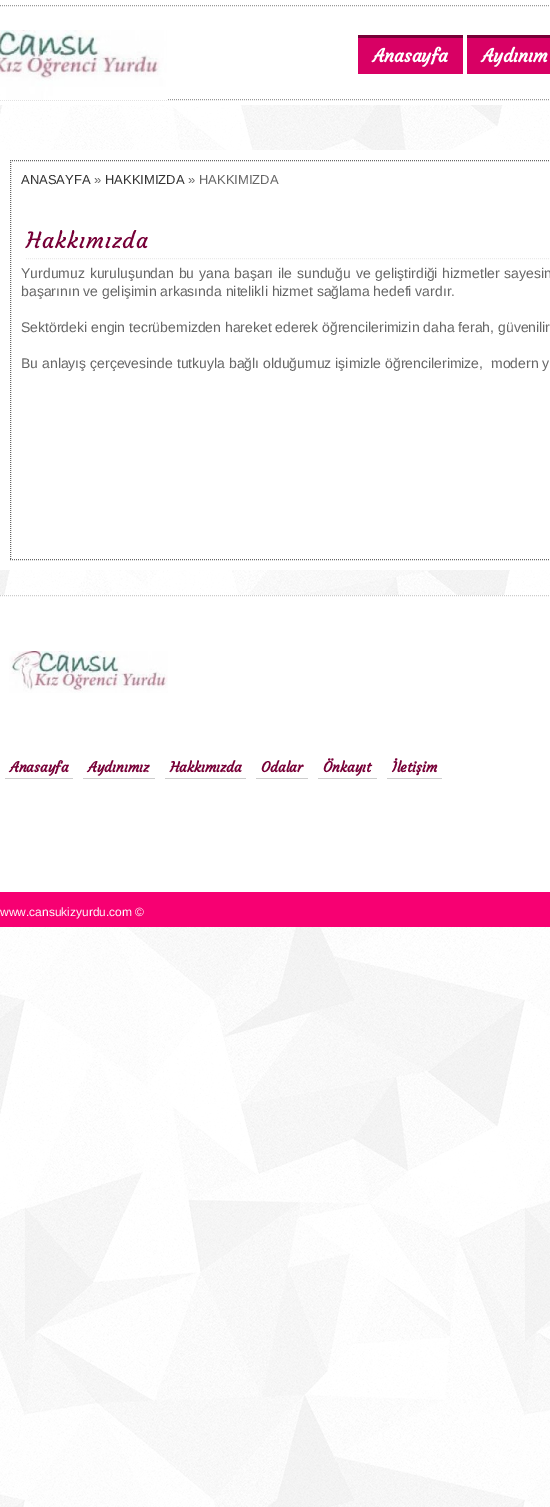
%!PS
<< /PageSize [550 1507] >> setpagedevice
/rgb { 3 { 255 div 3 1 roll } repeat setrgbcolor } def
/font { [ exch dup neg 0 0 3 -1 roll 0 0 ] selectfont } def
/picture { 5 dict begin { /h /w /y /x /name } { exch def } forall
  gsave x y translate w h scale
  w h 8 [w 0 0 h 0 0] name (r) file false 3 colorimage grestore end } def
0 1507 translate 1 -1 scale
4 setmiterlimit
255 255 255 rgb
0 0 550 1507 rectfill
(img/1.rgb) 0 105 550 1402 picture
153 153 153 rgb
[1 1] 0 setdash
0 5.5 moveto 550 5.5 lineto stroke
0 99.5 moveto 550 99.5 lineto stroke
(img/2.rgb) 0 30 167 70 picture
[
  [358 38 105 36 216 0 100]
  [358 35 105 3 119 0 55]
  [467 38 83 36 216 0 100]
  [467 35 83 3 119 0 55]
  [0 150 550 420 255 255 255]
] { aload pop rgb rectfill } forall
102 102 102 rgb
10 160.5 moveto 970 160.5 lineto stroke
10 559.5 moveto 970 559.5 lineto stroke
10.5 160 moveto 10.5 560 lineto stroke
234 234 234 rgb
26 258.5 moveto 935 258.5 lineto stroke
255 255 255 rgb
0 595 550 297 rectfill
204 204 204 rgb
0 595.5 moveto 550 595.5 lineto stroke
(img/3.rgb) 9 651 159 42 picture
[
  [5 778 68 1 204 204 204]
  [83 778 72 1 204 204 204]
  [165 778 81 1 204 204 204]
  [256 778 52 1 204 204 204]
  [318 778 59 1 204 204 204]
  [387 778 55 1 204 204 204]
  [0 892 550 35 247 0 114]
] { aload pop rgb rectfill } forall
/Courgette-Bold 18 font
255 255 255 rgb
373 62 moveto (Anasayfa) show
482 62 moveto (Aydınım) show
/LiberationSans-Regular 13 font
51 51 51 rgb
21 184 moveto (ANASAYFA) show
102 102 102 rgb
94 184 moveto (») show
51 51 51 rgb
105 184 moveto (HAKKIMIZDA) show
102 102 102 rgb
188 184 moveto (» HAKKIMIZDA) show
/Courgette-Regular 22 font
119 0 55 rgb
26 248 moveto 1 0 (Hakkımızda) ashow
/LiberationSans-Regular 14 font
102 102 102 rgb
21 278 moveto 1 0 32 (Yurdumuz kuruluşundan bu yana başarı ile sunduğu ve geliştirdiği hizmetler sayesin) widthshow
[
  [(başarının ve gelişimin arkasında nitelikli hizmet sağlama hedefi vardır.) 21 296]
  [(Sektördeki engin tecrübemizden hareket ederek öğrencilerimizin daha ferah, güvenilir) 21 332]
  [(Bu anlayış çerçevesinde tutkuyla bağlı olduğumuz işimizle öğrencilerimize,  modern y) 21 368]
] { aload pop moveto show } forall
/Courgette-Bold 14 font
119 0 55 rgb
[
  [(Anasayfa) 10 772]
  [(Aydınımız) 88 772]
  [(Hakkımızda) 170 772]
  [(Odalar) 261 772]
  [(Önkayıt) 323 772]
  [(İletişim) 392 772]
] { aload pop moveto show } forall
/LiberationSans-Regular 12 font
255 255 255 rgb
0 916 moveto (www.cansukizyurdu.com ©) show
showpage
